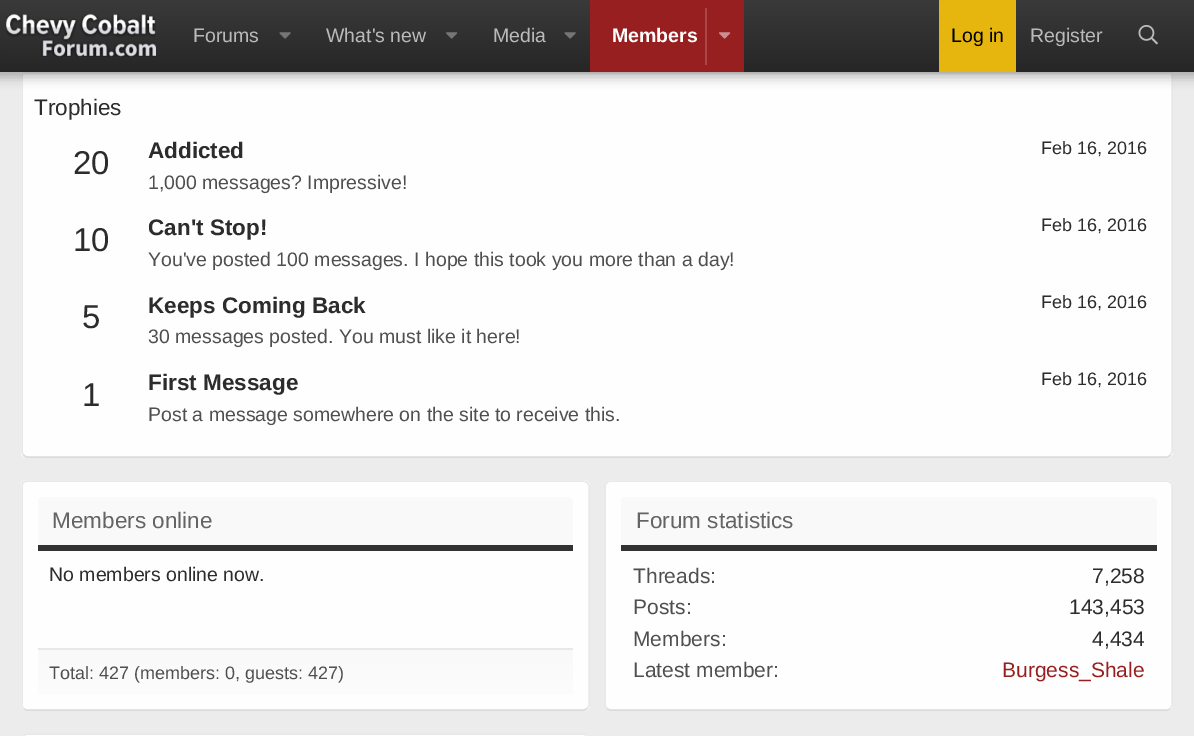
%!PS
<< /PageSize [1194 736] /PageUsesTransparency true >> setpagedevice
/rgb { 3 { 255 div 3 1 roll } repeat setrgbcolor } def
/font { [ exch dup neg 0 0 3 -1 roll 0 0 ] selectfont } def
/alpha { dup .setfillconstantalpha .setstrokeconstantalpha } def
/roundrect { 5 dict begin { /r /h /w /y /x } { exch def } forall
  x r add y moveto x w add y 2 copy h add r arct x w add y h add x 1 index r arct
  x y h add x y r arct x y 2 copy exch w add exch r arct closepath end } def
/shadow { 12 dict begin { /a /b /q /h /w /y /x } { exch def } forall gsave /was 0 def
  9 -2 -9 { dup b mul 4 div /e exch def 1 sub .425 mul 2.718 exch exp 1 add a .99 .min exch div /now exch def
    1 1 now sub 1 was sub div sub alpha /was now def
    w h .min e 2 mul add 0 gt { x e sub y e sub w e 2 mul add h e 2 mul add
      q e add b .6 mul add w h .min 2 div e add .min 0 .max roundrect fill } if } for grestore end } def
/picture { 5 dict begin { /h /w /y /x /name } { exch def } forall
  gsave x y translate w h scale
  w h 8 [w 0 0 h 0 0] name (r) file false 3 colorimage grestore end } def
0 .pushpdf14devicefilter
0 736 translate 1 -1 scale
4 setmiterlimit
236 236 236 rgb
0 0 1194 736 rectfill
254 254 254 rgb
21 -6 1152 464 6 roundrect fill
219 219 219 rgb
1.5 setlinewidth
1170.5 455 moveto 1169.5 456 1168.5 457 1167 457 curveto 27 457 lineto 25.5 457 24.5 456 23.5 455 curveto stroke
232 232 232 rgb
23.5 455 moveto 22 452 lineto 22 -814.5 lineto 22 -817.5 24 -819.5 27 -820 curveto 1167 -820 lineto 1170 -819.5 1172 -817.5 1172 -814.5 curveto 1172 452 lineto 1170.5 455 lineto stroke
23 72 1149 2 rectfill
0 0 0 rgb
-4 -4 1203 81 0 6 0.3 shadow
gsave 0 0 moveto 1194 0 lineto 1194 72 lineto 0 72 lineto closepath clip newpath
<< /ShadingType 2 /ColorSpace /DeviceRGB /Coords [597 0 597 72] /Extend [true true] /Function << /FunctionType 2 /Domain [0 1] /C0 [0.227 0.227 0.227] /C1 [0.149 0.149 0.149] /N 1 >> >> shfill grestore
(img/1.rgb) 6 14 150 43 picture
(img/2.rgb) 279 32 12 7 picture
(img/3.rgb) 446 32 12 7 picture
(img/2.rgb) 564 32 12 7 picture
152 31 31 rgb
590 0 154 72 rectfill
170 70 70 rgb
705 8 2 57 rectfill
(img/4.rgb) 719 32 12 7 picture
230 182 14 rgb
939 0 77 72 rectfill
(img/5.rgb) 1138 24 20 21 picture
254 254 254 rgb
21 480 569 231 6 roundrect fill
219 219 219 rgb
587 708.5 moveto 586 709.5 585 710 583.5 710 curveto 27 710 lineto 25.5 710 24.5 709.5 23.5 708.5 curveto stroke
232 232 232 rgb
23.5 708.5 moveto 22.5 707.5 22 706.5 22 705 curveto 22 486 lineto 22 484.5 22.5 483.5 23.5 482.5 curveto 24.5 481.5 25.5 481 27 481 curveto 583.5 481 lineto 585 481 586 481.5 587 482.5 curveto 588 483.5 589 484.5 589 486 curveto 589 705 lineto 589 706.5 588 707.5 587 708.5 curveto stroke
249 249 249 rgb
43 497 moveto 568 497 lineto 571 497 573 499 573 502 curveto 573 551 lineto 38 551 lineto 38 502 lineto 38 499 40 497 43 497 curveto closepath fill
50 50 50 rgb
38 545 535 6 rectfill
gsave 38 650 moveto 573 650 lineto 573 690 lineto 573 693 571 695 568 695 curveto 43 695 lineto 40 695 38 693 38 690 curveto closepath clip newpath
<< /ShadingType 2 /ColorSpace /DeviceRGB /Coords [305 650 305 695] /Extend [true true] /Function << /FunctionType 2 /Domain [0 1] /C0 [0.976 0.976 0.976] /C1 [0.988 0.988 0.988] /N 1 >> >> shfill grestore
232 232 232 rgb
38 648 535 2 rectfill
254 254 254 rgb
605 480 568 231 6 roundrect fill
219 219 219 rgb
1170.5 708.5 moveto 1169.5 709.5 1168.5 710 1167 710 curveto 610.5 710 lineto 609 710 608 709.5 607 708.5 curveto stroke
232 232 232 rgb
607 708.5 moveto 606 707.5 605 706.5 605 705 curveto 605 486 lineto 605 484.5 606 483.5 607 482.5 curveto 608 481.5 609 481 610.5 481 curveto 1167 481 lineto 1168.5 481 1169.5 481.5 1170.5 482.5 curveto 1171.5 483.5 1172 484.5 1172 486 curveto 1172 705 lineto 1172 706.5 1171.5 707.5 1170.5 708.5 curveto stroke
249 249 249 rgb
626 497 moveto 1152 497 lineto 1155 497 1157 499 1157 502 curveto 1157 551 lineto 621 551 lineto 621 502 lineto 621 499 623 497 626 497 curveto closepath fill
50 50 50 rgb
621 545 536 6 rectfill
254 254 254 rgb
21 734 569 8 6 roundrect fill
232 232 232 rgb
23.5 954.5 moveto 22.5 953.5 22 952.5 22 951 curveto 22 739.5 lineto 22 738 22.5 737 23.5 736 curveto 24.5 735 25.5 734 27 734 curveto 583.5 734 lineto 585 734 586 735 587 736 curveto 588 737 589 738 589 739.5 curveto 589 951 lineto 589 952.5 588 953.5 587 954.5 curveto stroke
/LiberationSans-Regular 19.5 font
186 186 186 rgb
[
  [(Forums) 193 42]
  [(What's new) 326 42]
  [(Media) 493 42]
] { aload pop moveto show } forall
/LiberationSans-Bold 19.5 font
255 255 255 rgb
612 42 moveto (Members) show
/LiberationSans-Regular 19.5 font
0 0 0 rgb
951 42 moveto (Log in) show
186 186 186 rgb
1030 42 moveto (Register) show
/LiberationSans-Regular 22.5 font
44 44 44 rgb
34 115 moveto (Trophies) show
/LiberationSans-Regular 33 font
73 174 moveto (20) show
/LiberationSans-Bold 22.5 font
148 158 moveto (Addicted) show
/LiberationSans-Regular 18 font
1041 154 moveto (Feb 16, 2016) show
/LiberationSans-Regular 19.5 font
79 79 79 rgb
148 189 moveto (1,000 messages? Impressive!) show
/LiberationSans-Regular 33 font
44 44 44 rgb
73 251 moveto (10) show
/LiberationSans-Bold 22.5 font
148 235 moveto (Can't Stop!) show
/LiberationSans-Regular 18 font
1041 231 moveto (Feb 16, 2016) show
/LiberationSans-Regular 19.5 font
79 79 79 rgb
148 266 moveto (You've posted 100 messages. I hope this took you more than a day!) show
/LiberationSans-Regular 33 font
44 44 44 rgb
82 328 moveto (5) show
/LiberationSans-Bold 22.5 font
148 313 moveto (Keeps Coming Back) show
/LiberationSans-Regular 18 font
1041 308 moveto (Feb 16, 2016) show
/LiberationSans-Regular 19.5 font
79 79 79 rgb
148 343 moveto (30 messages posted. You must like it here!) show
/LiberationSans-Regular 33 font
44 44 44 rgb
82 406 moveto (1) show
/LiberationSans-Bold 22.5 font
148 390 moveto (First Message) show
/LiberationSans-Regular 18 font
1041 385 moveto (Feb 16, 2016) show
/LiberationSans-Regular 19.5 font
79 79 79 rgb
148 421 moveto (Post a message somewhere on the site to receive this.) show
/LiberationSans-Regular 22.5 font
100 100 100 rgb
52 528 moveto (Members online) show
/LiberationSans-Regular 19.5 font
44 44 44 rgb
49 581 moveto (No members online now.) show
/LiberationSans-Regular 18 font
79 79 79 rgb
49 679 moveto (Total: 427 \(members: 0, guests: 427\)) show
/LiberationSans-Regular 22.5 font
100 100 100 rgb
636 528 moveto (Forum statistics) show
/LiberationSans-Regular 21 font
79 79 79 rgb
633 583 moveto (Threads:) show
44 44 44 rgb
1092 583 moveto (7,258) show
79 79 79 rgb
633 614 moveto (Posts:) show
44 44 44 rgb
1069 614 moveto (143,453) show
79 79 79 rgb
633 646 moveto (Members:) show
44 44 44 rgb
1092 646 moveto (4,434) show
79 79 79 rgb
633 677 moveto (Latest member:) show
152 31 31 rgb
1002 677 moveto (Burgess_Shale) show
.poppdf14devicefilter showpage
